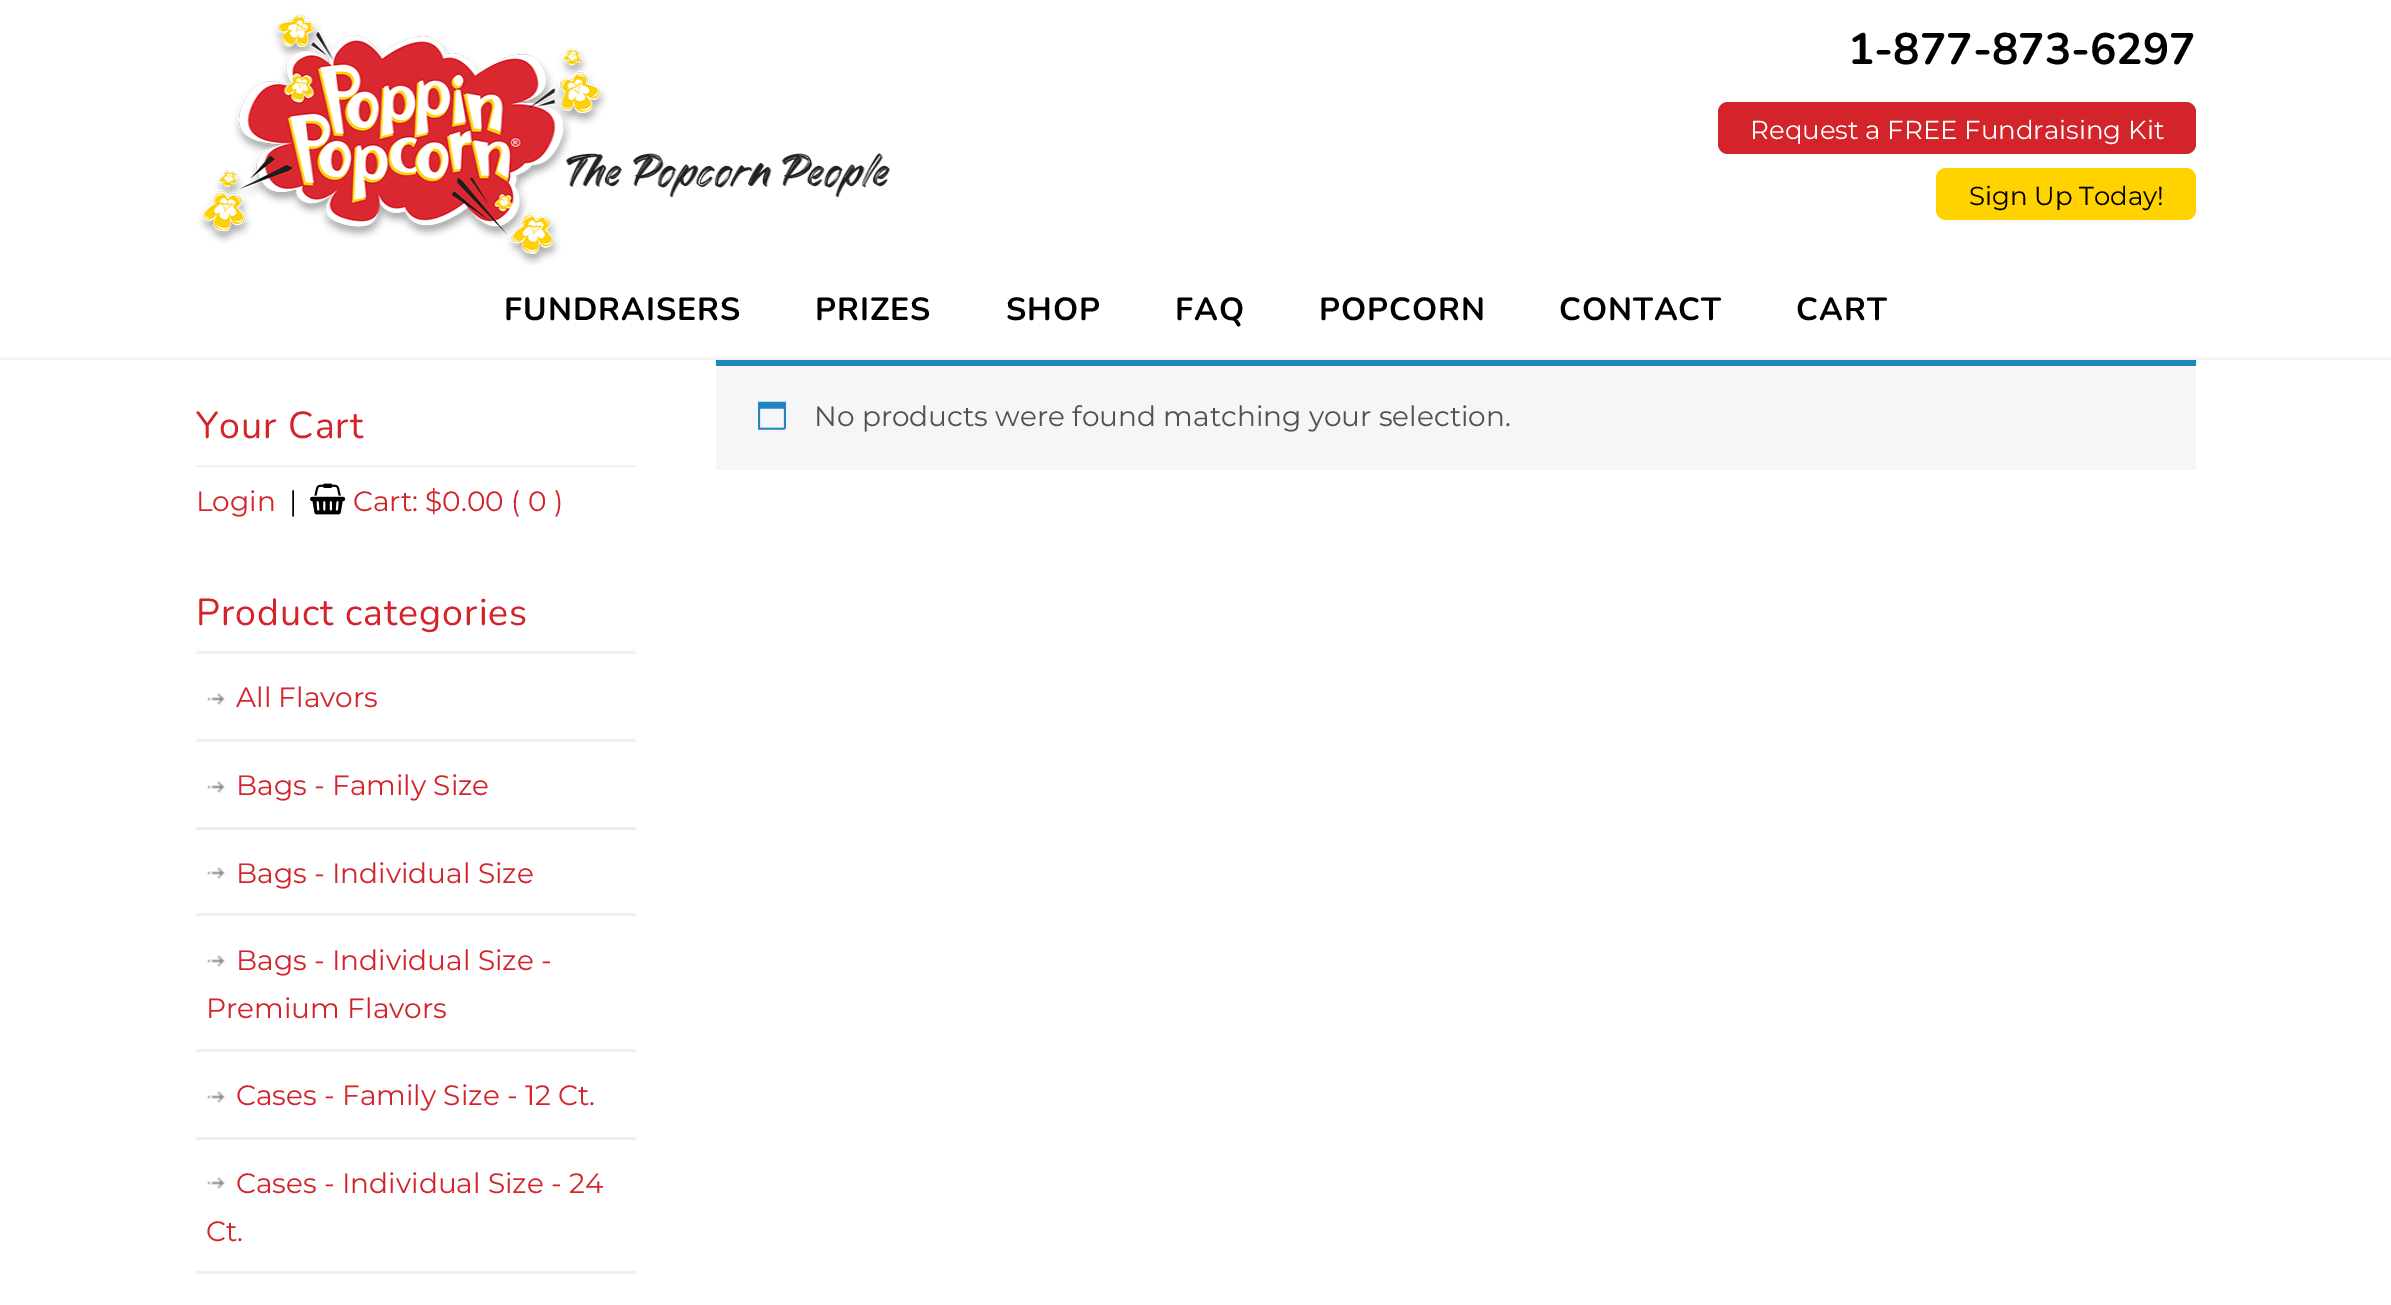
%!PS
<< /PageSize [2391 1305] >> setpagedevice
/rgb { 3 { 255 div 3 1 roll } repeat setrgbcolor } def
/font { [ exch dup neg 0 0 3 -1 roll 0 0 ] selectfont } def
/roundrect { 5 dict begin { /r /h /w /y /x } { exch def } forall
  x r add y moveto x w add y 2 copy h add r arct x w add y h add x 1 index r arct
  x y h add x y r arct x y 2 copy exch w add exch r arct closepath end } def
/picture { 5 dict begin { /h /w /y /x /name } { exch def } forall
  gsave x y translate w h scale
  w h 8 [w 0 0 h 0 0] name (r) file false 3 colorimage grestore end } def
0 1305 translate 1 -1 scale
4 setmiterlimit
255 255 255 rgb
0 0 2391 1305 rectfill
(img/1.rgb) 199 14 691 251 picture
210 36 42 rgb
1718 102 478 52 10 roundrect fill
255 210 0 rgb
1936 168 260 52 10 roundrect fill
(img/2.rgb) 0 357 2391 3 picture
(img/3.rgb) 196 465 440 3 picture
(img/4.rgb) 310 483 36 32 picture
241 241 241 rgb
196 651 440 3 rectfill
240 240 240 rgb
196 739 440 3 rectfill
(img/5.rgb) 207 693 18 12 picture
237 237 237 rgb
196 827 440 3 rectfill
(img/5.rgb) 207 781 18 12 picture
240 240 240 rgb
196 913 440 3 rectfill
(img/5.rgb) 207 867 18 12 picture
239 239 239 rgb
196 1049 440 3 rectfill
(img/5.rgb) 207 955 18 12 picture
237 237 237 rgb
196 1137 440 3 rectfill
(img/5.rgb) 207 1091 18 12 picture
239 239 239 rgb
196 1271 440 3 rectfill
(img/5.rgb) 207 1177 18 12 picture
246 245 248 rgb
716 366 1480 104 rectfill
30 133 190 rgb
716 360 1480 6 rectfill
(img/6.rgb) 758 401 28 29 picture
/Nunito-Bold 44 font
0 0 0 rgb
1848 64 moveto (1-877-873-6297) show
/Montserrat-Thin 26 font
255 255 255 rgb
1750 139 moveto (Request a FREE Fundraising Kit) show
0 0 0 rgb
1969 205 moveto (Sign Up Today!) show
/Nunito-Bold 32 font
504 320 moveto 1 0 (FUNDRAISERS) ashow
815 320 moveto 1 0 (PRIZES) ashow
1006 320 moveto 1 0 (SHOP) ashow
1175 320 moveto 1 0 (FAQ) ashow
1319 320 moveto 1 0 (POPCORN) ashow
1559 320 moveto 1 0 (CONTACT) ashow
1796 320 moveto 1 0 (CART) ashow
/Nunito-Regular 37.5 font
210 36 42 rgb
196 438 moveto 1 0 (Your Cart) ashow
/Montserrat-Thin 28 font
196 511 moveto (Login) show
0 0 0 rgb
289 511 moveto (|) show
210 36 42 rgb
353 511 moveto (Cart: $0.00 \( 0 \)) show
/Nunito-Regular 37.5 font
196 625 moveto 1 0 (Product categories) ashow
/Montserrat-Thin 28 font
[
  [(All Flavors) 236 707]
  [(Bags - Family Size) 236 795]
  [(Bags - Individual Size) 236 883]
  [(Bags - Individual Size -) 236 970]
  [(Premium Flavors) 206 1018]
  [(Cases - Family Size - 12 Ct.) 236 1105]
  [(Cases - Individual Size - 24) 236 1193]
  [(Ct.) 206 1241]
] { aload pop moveto show } forall
81 81 81 rgb
814 426 moveto (No products were found matching your selection.) show
showpage
